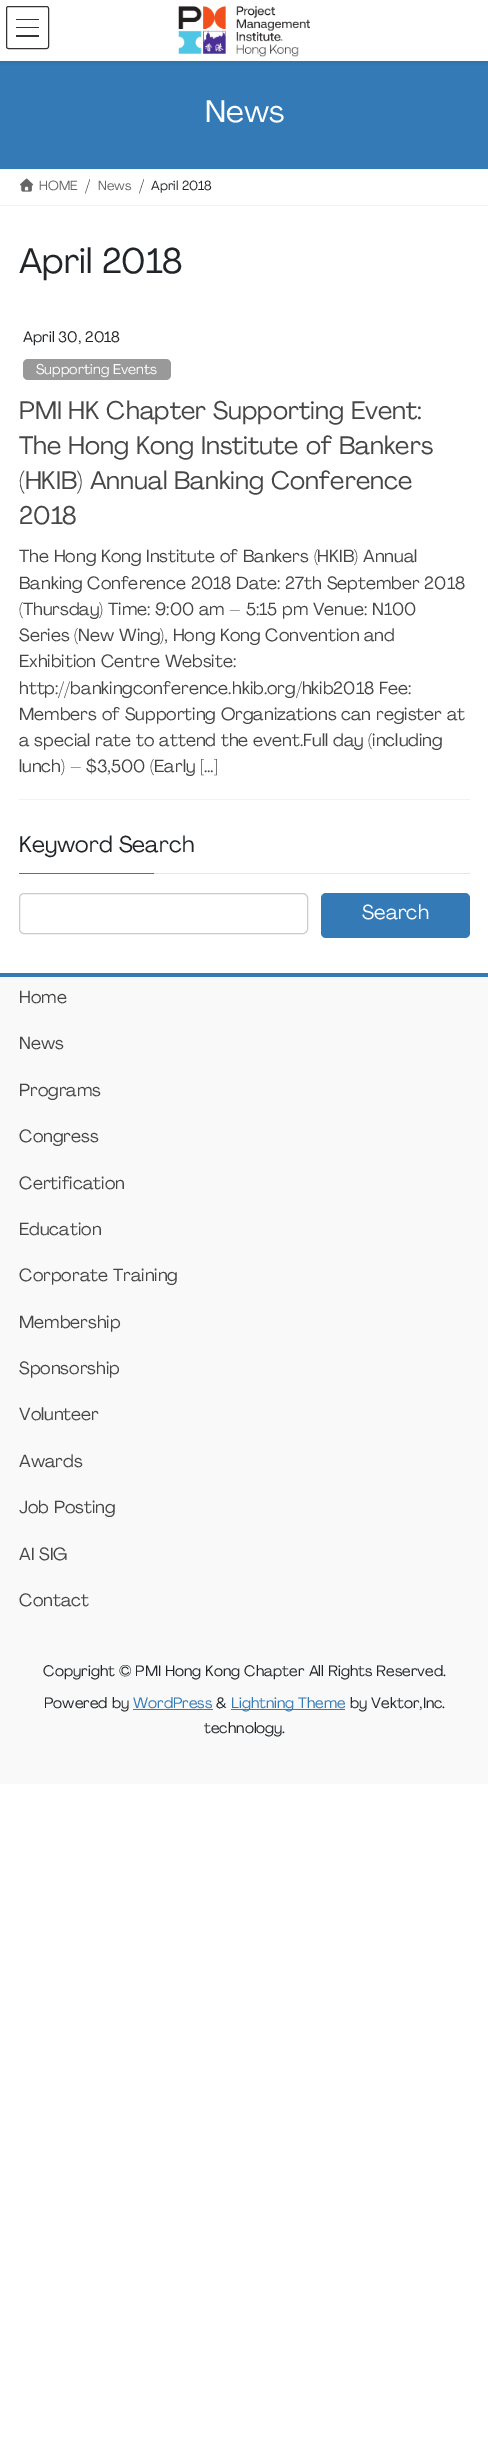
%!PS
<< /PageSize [488 2457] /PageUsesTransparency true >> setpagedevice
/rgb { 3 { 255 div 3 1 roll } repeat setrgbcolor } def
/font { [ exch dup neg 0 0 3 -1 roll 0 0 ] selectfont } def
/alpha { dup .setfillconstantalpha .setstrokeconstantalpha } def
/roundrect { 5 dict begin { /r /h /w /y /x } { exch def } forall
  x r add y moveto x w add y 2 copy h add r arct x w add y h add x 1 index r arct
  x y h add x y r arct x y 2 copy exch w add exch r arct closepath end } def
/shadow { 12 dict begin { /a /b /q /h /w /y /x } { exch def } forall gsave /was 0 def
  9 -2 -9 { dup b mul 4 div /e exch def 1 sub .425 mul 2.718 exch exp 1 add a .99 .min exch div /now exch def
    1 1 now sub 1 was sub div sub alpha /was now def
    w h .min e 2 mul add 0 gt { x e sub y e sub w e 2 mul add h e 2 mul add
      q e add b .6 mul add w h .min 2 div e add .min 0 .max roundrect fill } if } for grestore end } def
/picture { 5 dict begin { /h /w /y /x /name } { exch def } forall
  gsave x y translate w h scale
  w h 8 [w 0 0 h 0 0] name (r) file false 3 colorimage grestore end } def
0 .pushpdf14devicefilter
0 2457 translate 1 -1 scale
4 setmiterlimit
255 255 255 rgb
0 0 488 2457 rectfill
51 122 183 rgb
0 61 488 108 rectfill
gsave
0 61 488 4 rectclip
0 0 0 rgb
0 1 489 62 0 2 0.1 shadow
grestore
(img/1.rgb) 178 6 132 51 picture
[
  [16 19 23 1 51 51 51]
  [16 27 23 1 51 51 51]
  [16 35 23 2 51 51 51]
] { aload pop rgb rectfill } forall
6.5 6.5 42 42 2 roundrect stroke
242 242 242 rgb
0 205 488 1 rectfill
(img/2.rgb) 20 178 14 14 picture
19 799 451 1 rectfill
153 153 153 rgb
23 359 148 21 5 roundrect fill
230 230 230 rgb
154 873 316 1 rectfill
51 122 183 rgb
19 873 135 1 rectfill
204 204 204 rgb
19.5 893.5 288 40 4.5 roundrect stroke
51 122 183 rgb
321 893 149 45 5 roundrect fill
[
  [0 977 488 807 249 249 249]
  [0 973 488 4 51 122 183]
  [133 1709 80 1 51 122 183]
  [231 1709 114 1 51 122 183]
] { aload pop rgb rectfill } forall
/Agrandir-Regular 31 font
255 255 255 rgb
205 122 moveto (News) show
/Agrandir-Regular 13 font
102 102 102 rgb
39 190 moveto (HOME) show
/Agrandir-Regular 15 font
33 37 41 rgb
85 190 moveto (/) show
/Agrandir-Regular 13 font
102 102 102 rgb
98 190 moveto (News) show
/Agrandir-Regular 15 font
33 37 41 rgb
139 190 moveto (/) show
/Agrandir-Regular 13 font
151 190 moveto (April 2018) show
/Agrandir-Regular 35 font
19 273 moveto (April 2018) show
/Agrandir-Regular 15 font
23 342 moveto (April 30, 2018) show
/Agrandir-Regular 14 font
255 255 255 rgb
36 374 moveto (Supporting Events) show
/Agrandir-Regular 25 font
70 70 70 rgb
[
  [(PMI HK Chapter Supporting Event:) 19 419]
  [(The Hong Kong Institute of Bankers) 19 454]
  [(\(HKIB\) Annual Banking Conference) 19 489]
  [(2018) 19 524]
] { aload pop moveto show } forall
/Agrandir-Regular 17.5 font
[
  [(The Hong Kong Institute of Bankers \(HKIB\) Annual) 19 562]
  [(Banking Conference 2018 Date: 27th September 2018) 19 589]
  [(\(Thursday\) Time: 9:00 am – 5:15 pm Venue: N100) 19 615]
  [(Series \(New Wing\), Hong Kong Convention and) 19 641]
  [(Exhibition Centre Website:) 19 667]
  [(http://bankingconference.hkib.org/hkib2018 Fee:) 19 694]
  [(Members of Supporting Organizations can register at) 19 720]
  [(a special rate to attend the event.Full day \(including) 19 746]
  [(lunch\) – $3,500 \(Early […]) 19 772]
] { aload pop moveto show } forall
/Agrandir-Regular 22.5 font
33 37 41 rgb
19 852 moveto (Keyword Search) show
/Agrandir-Regular 20 font
255 255 255 rgb
362 919 moveto (Search) show
/Agrandir-Regular 17.5 font
70 70 70 rgb
[
  [(Home) 19 1003]
  [(News) 19 1049]
  [(Programs) 19 1096]
  [(Congress) 19 1142]
  [(Certification) 19 1189]
  [(Education) 19 1235]
  [(Corporate Training) 19 1281]
  [(Membership) 19 1328]
  [(Sponsorship) 19 1374]
  [(Volunteer) 19 1420]
  [(Awards) 19 1467]
  [(Job Posting) 19 1513]
  [(AI SIG) 19 1560]
  [(Contact) 19 1606]
] { aload pop moveto show } forall
/Agrandir-Regular 15 font
33 37 41 rgb
43 1676 moveto (Copyright © PMI Hong Kong Chapter All Rights Reserved.) show
44 1708 moveto (Powered by) show
51 122 183 rgb
133 1708 moveto (WordPress) show
33 37 41 rgb
216 1708 moveto (&) show
51 122 183 rgb
231 1708 moveto (Lightning Theme) show
33 37 41 rgb
350 1708 moveto (by Vektor,Inc.) show
204 1733 moveto (technology.) show
.poppdf14devicefilter showpage
